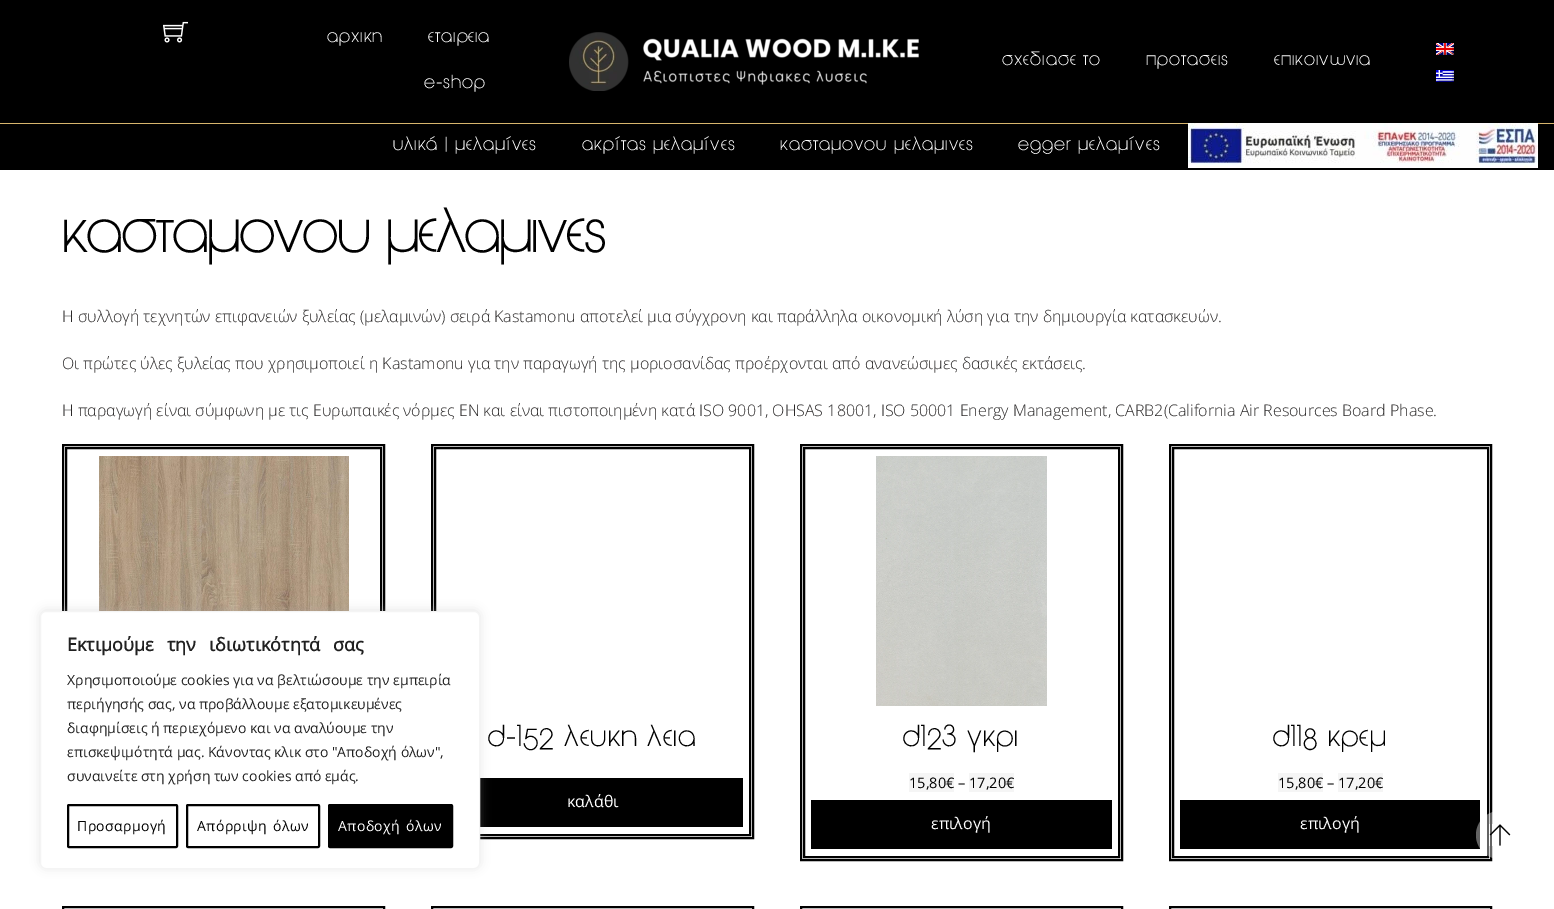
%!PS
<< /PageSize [1554 909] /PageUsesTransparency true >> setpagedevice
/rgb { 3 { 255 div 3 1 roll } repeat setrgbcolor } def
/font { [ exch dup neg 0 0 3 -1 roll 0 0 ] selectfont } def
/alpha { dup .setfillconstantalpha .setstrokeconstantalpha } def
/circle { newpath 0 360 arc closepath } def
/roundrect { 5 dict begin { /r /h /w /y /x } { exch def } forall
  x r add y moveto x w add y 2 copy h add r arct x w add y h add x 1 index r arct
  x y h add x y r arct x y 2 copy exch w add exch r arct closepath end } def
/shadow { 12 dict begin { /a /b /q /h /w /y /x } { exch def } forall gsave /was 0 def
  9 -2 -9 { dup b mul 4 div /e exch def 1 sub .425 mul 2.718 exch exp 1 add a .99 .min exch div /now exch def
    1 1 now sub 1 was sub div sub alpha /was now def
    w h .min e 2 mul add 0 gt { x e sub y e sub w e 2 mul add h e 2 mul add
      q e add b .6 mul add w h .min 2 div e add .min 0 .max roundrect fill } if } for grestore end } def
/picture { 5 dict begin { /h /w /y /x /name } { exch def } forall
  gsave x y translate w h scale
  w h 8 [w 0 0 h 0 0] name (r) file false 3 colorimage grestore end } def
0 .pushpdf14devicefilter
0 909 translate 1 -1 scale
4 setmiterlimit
255 255 255 rgb
0 0 1554 909 rectfill
0 0 0 rgb
0 0 1554 123 rectfill
(img/1.rgb) 163 21 25 22 picture
(img/2.rgb) 569 32 350 59 picture
(img/3.rgb) 1436 43 18 12 picture
(img/4.rgb) 1436 70 18 12 picture
215 181 109 rgb
0 123 1554 1 rectfill
0 0 0 rgb
0 124 1554 46 rectfill
(img/5.rgb) 1188 123 350 45 picture
2 setlinewidth
63 445 321 415 rectstroke
66 448 315 409 rectstroke
(img/6.rgb) 99 456 250 155 picture
432 445 321 393 rectstroke
435 448 315 387 rectstroke
480 778 263 49 rectfill
801 445 321 415 rectstroke
804 448 315 409 rectstroke
(img/7.rgb) 876 456 171 250 picture
[
  [909 773 45 19 245 245 245]
  [969 773 45 19 245 245 245]
  [811 800 301 49 0 0 0]
] { aload pop rgb rectfill } forall
1170 445 321 415 rectstroke
1173 448 315 409 rectstroke
[
  [1278 773 45 19 245 245 245]
  [1338 773 45 19 245 245 245]
  [1180 800 300 49 0 0 0]
] { aload pop rgb rectfill } forall
63 907 321 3 rectstroke
432 907 321 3 rectstroke
801 907 321 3 rectstroke
1170 907 321 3 rectstroke
0.39 alpha
255 255 255 rgb
1500 835 24 circle fill
1 alpha
(img/8.rgb) 1489 824 22 22 picture
172 171 171 rgb
40 610 440 258 6 5 0.3 shadow
255 255 255 rgb
40.5 611.5 439 257 5.5 roundrect gsave fill grestore
244 244 244 rgb
1 setlinewidth
stroke
0 0 0 rgb
2 setlinewidth
68 805 109 42 1 roundrect stroke
187 805 132 42 1 roundrect stroke
329 805 123 42 1 roundrect gsave fill grestore
stroke
/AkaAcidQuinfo-Regular 18 font
255 255 255 rgb
327 42 moveto 1 0 (αρχικη) ashow
428 42 moveto 1 0 (εταιρεια) ashow
424 88 moveto 1 0 (e-shop) ashow
1002 65 moveto 1 0 (σχεδιασε το) ashow
1146 65 moveto 1 0 (προτασεις) ashow
1274 65 moveto 1 0 (επικοινωνια) ashow
393 150 moveto 1 0 (υλικά | μελαμίνες) ashow
582 150 moveto 1 0 (ακρίτας μελαμίνες) ashow
780 150 moveto 1 0 (κασταμονου μελαμινες) ashow
1018 150 moveto 1 0 (egger μελαμίνες) ashow
/AkaAcidQuinfo-Regular 60 font
0 0 0 rgb
62 252 moveto -1.8 0 (κασταμονου μελαμινες) ashow
/OpenSans-Light 16 font
43 41 41 rgb
[
  [(Η συλλογή τεχνητών επιφανειών ξυλείας \(μελαμινών\) σειρά Kastamonu αποτελεί μια σύγχρονη και παράλληλα οικονομική λύση για την δημιουργία κατασκευών.) 62 322]
  [(Οι πρώτες ύλες ξυλείας που χρησιμοποιεί η Kastamonu για την παραγωγή της μοριοσανίδας προέρχονται από ανανεώσιμες δασικές εκτάσεις.) 62 369]
  [(Η παραγωγή είναι σύμφωνη με τις Ευρωπαικές νόρμες EN και είναι πιστοποιημένη κατά ISO 9001, OHSAS 18001, ISO 50001 Energy Management, CARB2\(California Air Resources Board Phase.) 62 416]
] { aload pop moveto show } forall
/AkaAcidQuinfo-Regular 28.75 font
0 0 0 rgb
488 746 moveto 1 0 (d-152 λευκη λεια) ashow
/OpenSans-Regular 16 font
255 255 255 rgb
567 807 moveto (καλάθι) show
/AkaAcidQuinfo-Regular 28.75 font
0 0 0 rgb
903 746 moveto 1 0 (d123 γκρι) ashow
/OpenSans-Regular 14.5 font
909 788 moveto (15,80€ –) show
969 788 moveto (17,20€) show
/OpenSans-Regular 16 font
255 255 255 rgb
931 829 moveto (επιλογή) show
/AkaAcidQuinfo-Regular 28.75 font
0 0 0 rgb
1273 746 moveto 1 0 (d118 κρεμ) ashow
/OpenSans-Regular 14.5 font
1278 788 moveto (15,80€ –) show
1338 788 moveto (17,20€) show
/OpenSans-Regular 16 font
255 255 255 rgb
1300 829 moveto (επιλογή) show
/OpenSans-Bold 18 font
33 33 33 rgb
67 651 moveto 8.5 0 32 (Εκτιμούμε την ιδιωτικότητά σας) widthshow
/OpenSans-Regular 14 font
[
  [(Χρησιμοποιούμε cookies για να βελτιώσουμε την εμπειρία) 67 685]
  [(περιήγησής σας, να προβάλλουμε εξατομικευμένες) 67 709]
  [(διαφημίσεις ή περιεχόμενο και να αναλύουμε την) 67 733]
  [(επισκεψιμότητά μας. Κάνοντας κλικ στο "Αποδοχή όλων",) 67 757]
  [(συναινείτε στη χρήση των cookies από εμάς.) 67 781]
] { aload pop moveto show } forall
0 0 0 rgb
77 831 moveto 0.4 0 (Προσαρμογή) ashow
197 831 moveto 2 0 32 0.4 0 (Απόρριψη όλων) awidthshow
255 255 255 rgb
338 831 moveto 2 0 32 0.4 0 (Αποδοχή όλων) awidthshow
.poppdf14devicefilter showpage
